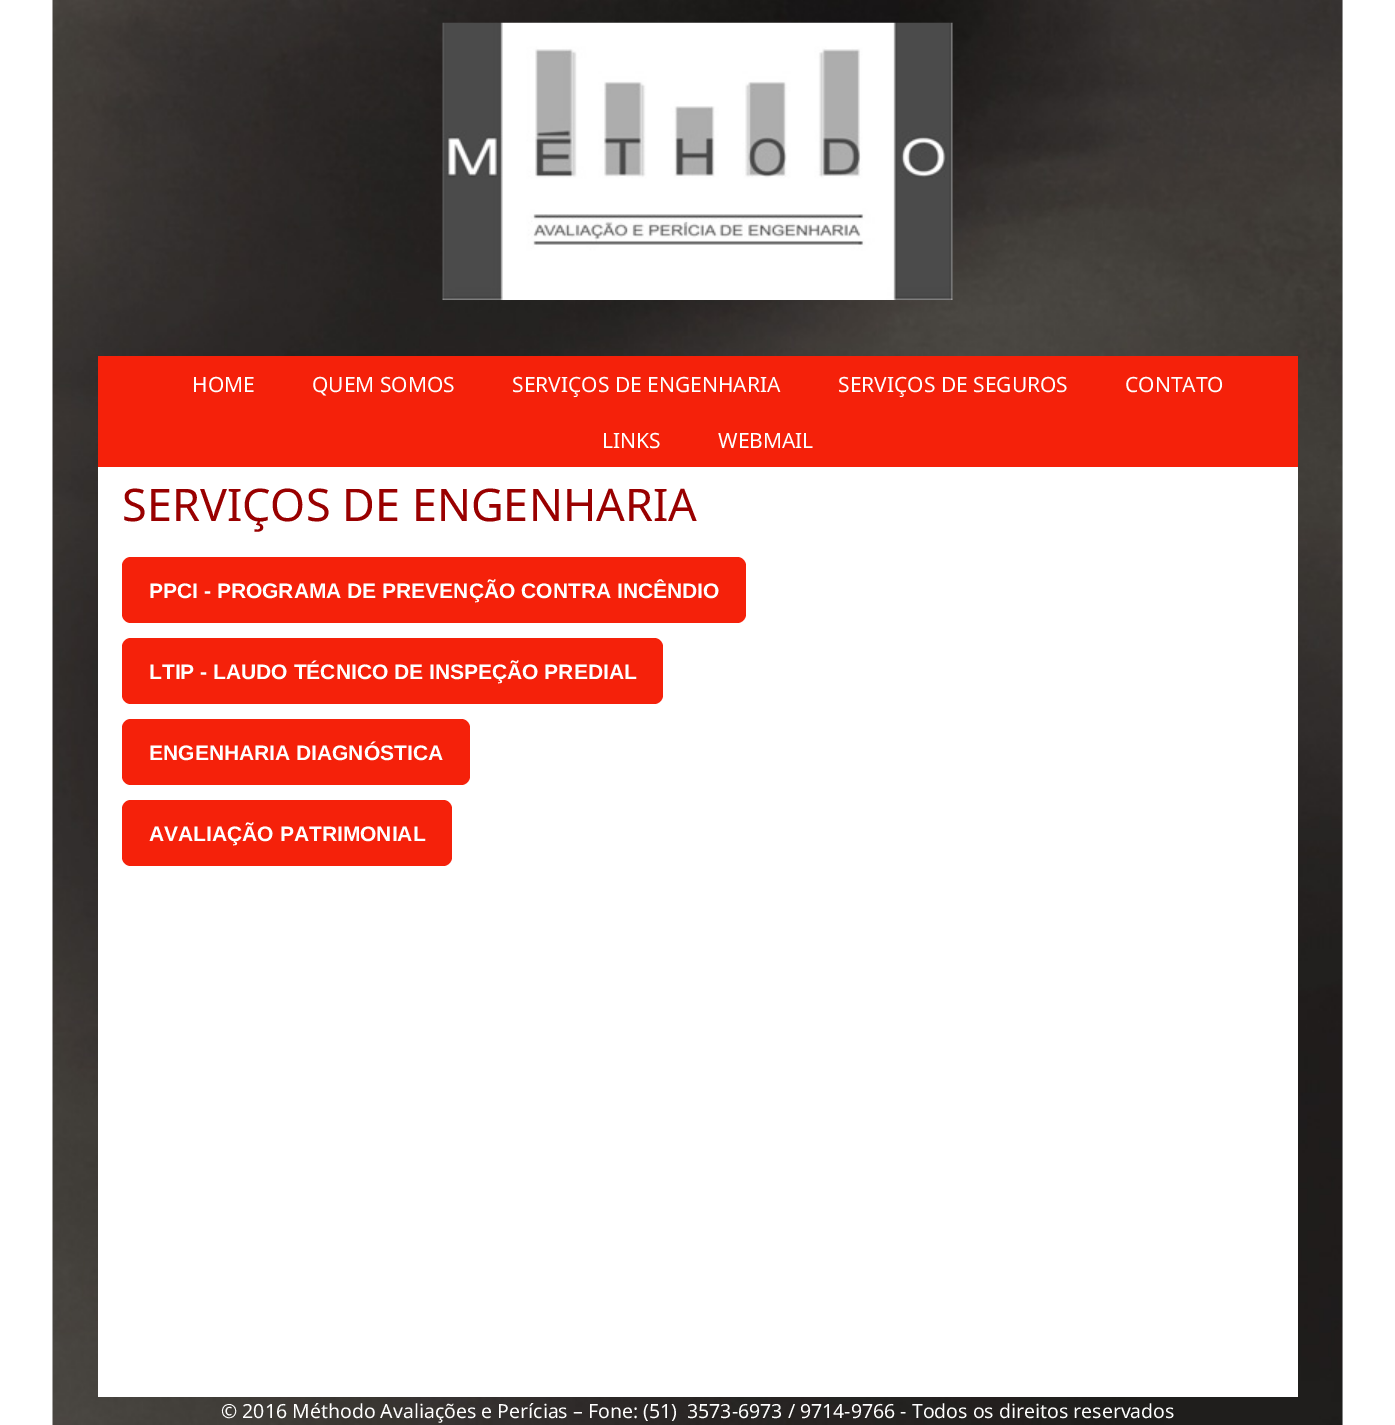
%!PS
<< /PageSize [1395 1425] >> setpagedevice
/rgb { 3 { 255 div 3 1 roll } repeat setrgbcolor } def
/font { [ exch dup neg 0 0 3 -1 roll 0 0 ] selectfont } def
/roundrect { 5 dict begin { /r /h /w /y /x } { exch def } forall
  x r add y moveto x w add y 2 copy h add r arct x w add y h add x 1 index r arct
  x y h add x y r arct x y 2 copy exch w add exch r arct closepath end } def
/picture { 5 dict begin { /h /w /y /x /name } { exch def } forall
  gsave x y translate w h scale
  w h 8 [w 0 0 h 0 0] name (r) file false 3 colorimage grestore end } def
0 1425 translate 1 -1 scale
4 setmiterlimit
255 255 255 rgb
0 0 1395 1425 rectfill
232 236 238 rgb
1342 0 1 1425 rectfill
(img/1.rgb) 52 0 1291 1425 picture
(img/2.rgb) 442 22 511 278 picture
255 255 255 rgb
98 467 1200 930 rectfill
245 33 10 rgb
98 356 1200 111 rectfill
122 557 624 66 9 roundrect fill
122 638 541 66 9 roundrect fill
122 719 348 66 9 roundrect fill
122 800 330 66 9 roundrect fill
/NotoSans-Regular 21 font
255 255 255 rgb
[
  [(HOME) 192 392]
  [(QUEM SOMOS) 312 392]
  [(SERVIÇOS DE ENGENHARIA) 512 392]
  [(SERVIÇOS DE SEGUROS) 838 392]
  [(CONTATO) 1125 392]
  [(LINKS) 602 448]
  [(WEBMAIL) 718 448]
] { aload pop moveto show } forall
/NotoSans-Regular 45 font
153 0 0 rgb
122 521 moveto (SERVIÇOS DE ENGENHARIA) show
/LiberationSans-Bold 21 font
255 255 255 rgb
[
  [(PPCI - PROGRAMA DE PREVENÇÃO CONTRA INCÊNDIO) 149 598]
  [(LTIP - LAUDO TÉCNICO DE INSPEÇÃO PREDIAL) 149 679]
  [(ENGENHARIA DIAGNÓSTICA) 149 760]
  [(AVALIAÇÃO PATRIMONIAL) 149 841]
] { aload pop moveto show } forall
/NotoSans-Regular 19.5 font
221 1418 moveto (© 2016 Méthodo Avaliações e Perícias – Fone: \(51\)) show
687 1418 moveto (3573-6973 / 9714-9766 - Todos os direitos reservados) show
showpage
